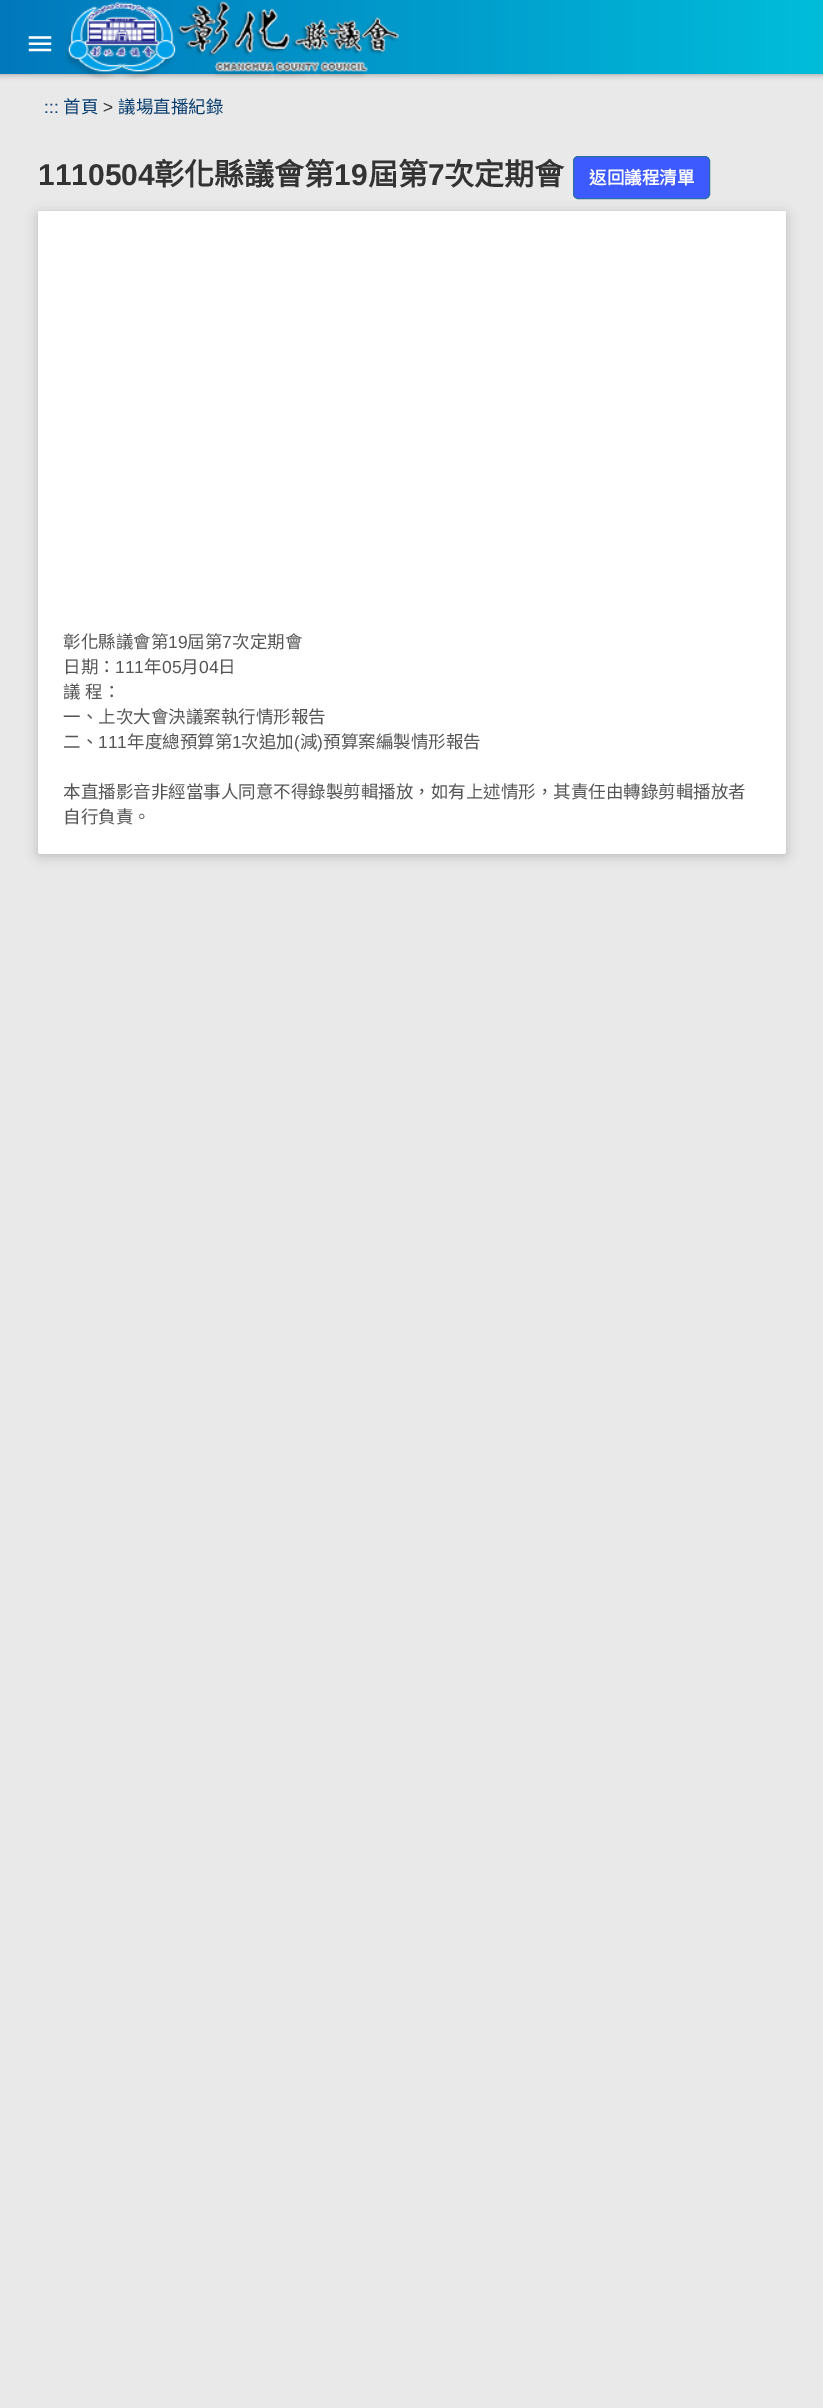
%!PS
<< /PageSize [823 2408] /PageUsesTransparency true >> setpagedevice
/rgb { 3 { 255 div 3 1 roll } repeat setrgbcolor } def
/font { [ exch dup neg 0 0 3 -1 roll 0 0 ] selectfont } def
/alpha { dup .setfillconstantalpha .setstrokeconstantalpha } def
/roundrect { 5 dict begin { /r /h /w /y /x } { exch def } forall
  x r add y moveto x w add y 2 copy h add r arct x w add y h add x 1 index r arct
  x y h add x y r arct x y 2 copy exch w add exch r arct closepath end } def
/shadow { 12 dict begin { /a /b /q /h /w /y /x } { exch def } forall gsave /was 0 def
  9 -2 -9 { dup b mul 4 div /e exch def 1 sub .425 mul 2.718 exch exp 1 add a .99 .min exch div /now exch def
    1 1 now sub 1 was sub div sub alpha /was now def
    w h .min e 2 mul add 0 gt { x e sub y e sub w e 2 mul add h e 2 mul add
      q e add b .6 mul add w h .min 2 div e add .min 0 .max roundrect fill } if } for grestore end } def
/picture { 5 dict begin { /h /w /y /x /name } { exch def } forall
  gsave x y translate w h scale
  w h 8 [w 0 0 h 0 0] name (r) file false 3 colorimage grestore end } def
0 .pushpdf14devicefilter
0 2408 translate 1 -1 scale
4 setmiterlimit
233 233 233 rgb
0 0 823 2408 rectfill
0 0 0 rgb
0 1 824 74 0 3 0.3 shadow
gsave 0 0 moveto 823 0 lineto 823 74 lineto 0 74 lineto closepath clip newpath
<< /ShadingType 2 /ColorSpace /DeviceRGB /Coords [0 37 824 37] /Extend [true true] /Function << /FunctionType 2 /Domain [0 1] /C0 [0.004 0.471 0.737] /C1 [0 0.741 0.855] /N 1 >> >> shfill grestore
(img/1.rgb) 28 36 24 16 picture
(img/2.rgb) 65 1 334 78 picture
61 90 255 rgb
573.5 156.5 136 42 4.5 roundrect gsave fill grestore
46 109 164 rgb
stroke
0 0 0 rgb
38 214 748 642 2.5 6 0.2 shadow
255 255 255 rgb
38 211 748 643 2.5 roundrect fill
/LiberationSans-Regular 17.5 font
10 62 111 rgb
44 113 moveto (:::) show
/NotoSansCJKTC-Regular 17.5 font
63 113 moveto (首頁) show
/LiberationSans-Regular 17.5 font
51 51 51 rgb
103 113 moveto (>) show
/NotoSansCJKTC-Regular 17.5 font
10 62 111 rgb
118 113 moveto (議場直播紀錄) show
/LiberationSans-Bold 30 font
51 51 51 rgb
38 185 moveto (1110504) show
/NotoSansCJKTC-Bold 30 font
154 185 moveto (彰化縣議會第) show
/LiberationSans-Bold 30 font
334 185 moveto (19) show
/NotoSansCJKTC-Bold 30 font
368 185 moveto (屆第) show
/LiberationSans-Bold 30 font
428 185 moveto (7) show
/NotoSansCJKTC-Bold 30 font
444 185 moveto (次定期會) show
/NotoSansCJKTC-Bold 17.5 font
255 255 255 rgb
589 184 moveto (返回議程清單) show
/NotoSansCJKTC-Regular 17.5 font
85 85 85 rgb
63 648 moveto (彰化縣議會第) show
/LiberationSans-Regular 17.5 font
168 648 moveto (19) show
/NotoSansCJKTC-Regular 17.5 font
187 648 moveto (屆第) show
/LiberationSans-Regular 17.5 font
222 648 moveto (7) show
/NotoSansCJKTC-Regular 17.5 font
232 648 moveto (次定期會) show
63 673 moveto (日期：) show
/LiberationSans-Regular 17.5 font
115 673 moveto (111) show
/NotoSansCJKTC-Regular 17.5 font
144 673 moveto (年) show
/LiberationSans-Regular 17.5 font
162 673 moveto (05) show
/NotoSansCJKTC-Regular 17.5 font
181 673 moveto (月) show
/LiberationSans-Regular 17.5 font
199 673 moveto (04) show
/NotoSansCJKTC-Regular 17.5 font
218 673 moveto (日) show
63 698 moveto 1 0 32 (議 程：) widthshow
63 723 moveto (一、上次大會決議案執行情形報告) show
63 748 moveto (二、) show
/LiberationSans-Regular 17.5 font
98 748 moveto (111) show
/NotoSansCJKTC-Regular 17.5 font
127 748 moveto (年度總預算第) show
/LiberationSans-Regular 17.5 font
232 748 moveto (1) show
/NotoSansCJKTC-Regular 17.5 font
241 748 moveto (次追加) show
/LiberationSans-Regular 17.5 font
294 748 moveto (\() show
/NotoSansCJKTC-Regular 17.5 font
300 748 moveto (減) show
/LiberationSans-Regular 17.5 font
317 748 moveto (\)) show
/NotoSansCJKTC-Regular 17.5 font
[
  [(預算案編製情形報告) 323 748]
  [(本直播影音非經當事人同意不得錄製剪輯播放，如有上述情形，其責任由轉錄剪輯播放者) 63 798]
  [(自行負責。) 63 823]
] { aload pop moveto show } forall
.poppdf14devicefilter showpage
